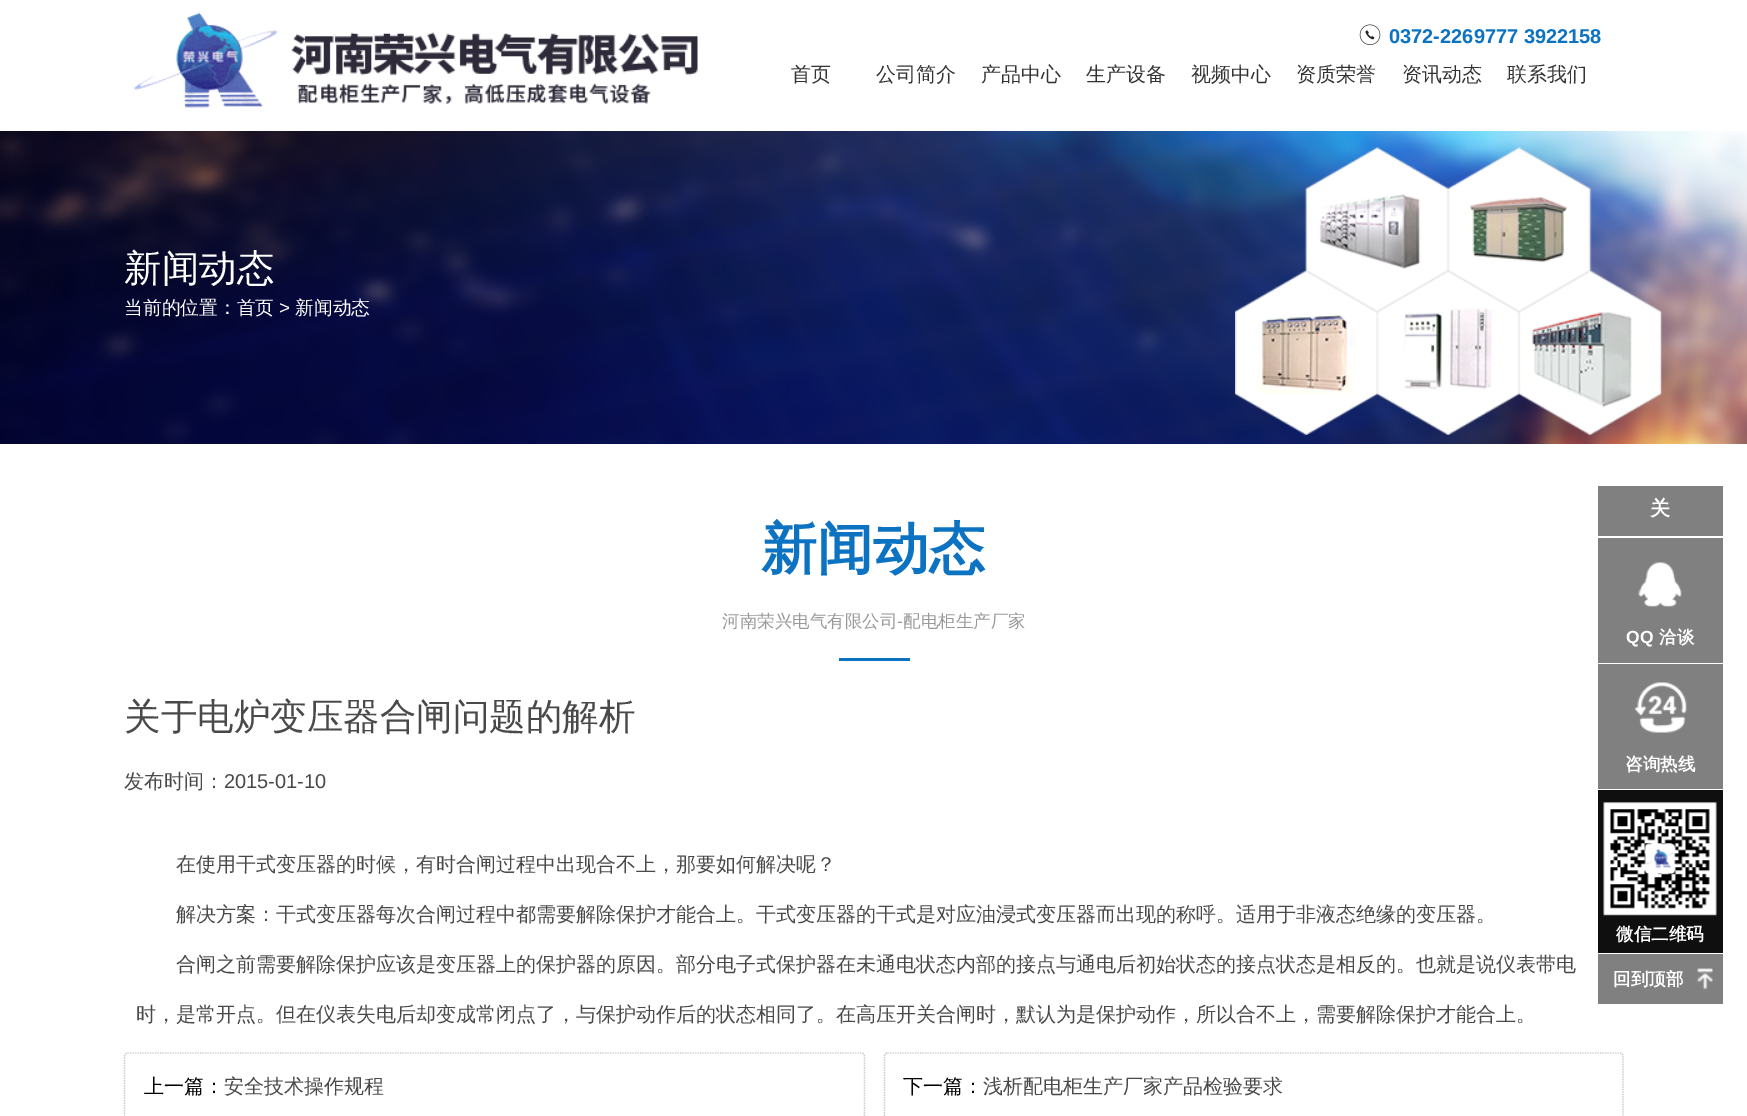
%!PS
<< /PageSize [1747 1116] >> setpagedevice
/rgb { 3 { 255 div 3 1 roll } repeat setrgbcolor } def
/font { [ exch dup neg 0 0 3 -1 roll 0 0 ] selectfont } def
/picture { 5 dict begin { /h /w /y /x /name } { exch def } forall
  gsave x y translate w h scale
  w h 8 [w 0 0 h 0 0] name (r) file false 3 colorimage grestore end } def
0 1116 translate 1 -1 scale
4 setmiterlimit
255 255 255 rgb
0 0 1747 1116 rectfill
(img/1.rgb) 133 12 565 96 picture
(img/2.rgb) 1359 24 22 21 picture
(img/3.rgb) 0 131 1747 313 picture
(img/4.rgb) 1235 147 427 288 picture
11 115 193 rgb
839 658 71 3 rectfill
204 204 204 rgb
1.2 setlinewidth
[1.25 1.25] 0 setdash
127.5 1053 moveto 861 1053 lineto 863 1053 864.5 1054.5 864.5 1056 curveto 864.5 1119 lineto 864.5 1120.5 863 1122 861 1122 curveto 127.5 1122 lineto 126 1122 124.5 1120.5 124.5 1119 curveto 124.5 1056 lineto 124.5 1054.5 126 1053 127.5 1053 curveto closepath stroke
887.5 1053 moveto 1620 1053 lineto 1621.5 1053 1623 1054.5 1623 1056 curveto 1623 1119 lineto 1623 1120.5 1621.5 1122 1620 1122 curveto 887.5 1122 lineto 886 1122 884.5 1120.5 884.5 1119 curveto 884.5 1056 lineto 884.5 1054.5 886 1053 887.5 1053 curveto closepath stroke
128 128 128 rgb
1598 486 125 50 rectfill
1598 538 125 125 rectfill
(img/5.rgb) 1638 562 44 45 picture
1598 664 125 125 rectfill
(img/6.rgb) 1634 682 53 51 picture
15 15 15 rgb
1598 790 125 163 rectfill
(img/7.rgb) 1603 802 114 114 picture
128 128 128 rgb
1598 954 125 50 rectfill
(img/8.rgb) 1697 968 16 22 picture
/LiberationSans-Bold 20 font
11 115 193 rgb
1389 43 moveto (0372-2269777 3922158) show
/WenQuanYiZenHei-Medium 20 font
51 51 51 rgb
[
  [(首页) 791 81]
  [(公司简介) 876 81]
  [(产品中心) 981 81]
  [(生产设备) 1086 81]
  [(视频中心) 1191 81]
  [(资质荣誉) 1296 81]
  [(资讯动态) 1402 81]
  [(联系我们) 1507 81]
] { aload pop moveto show } forall
/WenQuanYiZenHei-Medium 37.5 font
255 255 255 rgb
124 281 moveto (新闻动态) show
/WenQuanYiZenHei-Medium 18.75 font
124 314 moveto (当前的位置：首页) show
/LiberationSans-Regular 18.75 font
279 314 moveto (>) show
/WenQuanYiZenHei-Medium 18.75 font
295 314 moveto (新闻动态) show
/WenQuanYiZenHei-Bold 56 font
11 115 193 rgb
761 568 moveto (新闻动态) show
/WenQuanYiZenHei-Medium 17.5 font
153 153 153 rgb
722 627 moveto (河南荣兴电气有限公司) show
/LiberationSans-Regular 17.5 font
897 627 moveto (-) show
/WenQuanYiZenHei-Medium 17.5 font
903 627 moveto (配电柜生产厂家) show
/WenQuanYiZenHei-Medium 36.5 font
73 73 73 rgb
124 729 moveto (关于电炉变压器合闸问题的解析) show
/WenQuanYiZenHei-Medium 20 font
124 788 moveto (发布时间：) show
/LiberationSans-Regular 20 font
224 788 moveto (2015-01-10) show
/WenQuanYiZenHei-Medium 20 font
[
  [(在使用干式变压器的时候，有时合闸过程中出现合不上，那要如何解决呢？) 176 871]
  [(解决方案：干式变压器每次合闸过程中都需要解除保护才能合上。干式变压器的干式是对应油浸式变压器而出现的称呼。适用于非液态绝缘的变压器。) 176 921]
  [(合闸之前需要解除保护应该是变压器上的保护器的原因。部分电子式保护器在未通电状态内部的接点与通电后初始状态的接点状态是相反的。也就是说仪表带电) 176 971]
  [(时，是常开点。但在仪表失电后却变成常闭点了，与保护动作后的状态相同了。在高压开关合闸时，默认为是保护动作，所以合不上，需要解除保护才能合上。) 136 1021]
] { aload pop moveto show } forall
0 0 0 rgb
144 1093 moveto (上一篇：) show
73 73 73 rgb
224 1093 moveto (安全技术操作规程) show
0 0 0 rgb
903 1093 moveto (下一篇：) show
73 73 73 rgb
983 1093 moveto (浅析配电柜生产厂家产品检验要求) show
/WenQuanYiZenHei-Bold 20 font
255 255 255 rgb
1650 515 moveto (关) show
/LiberationSans-Bold 17.5 font
1626 643 moveto (QQ) show
/WenQuanYiZenHei-Bold 17.5 font
[
  [(洽谈) 1659 643]
  [(咨询热线) 1625 770]
  [(微信二维码) 1616 940]
  [(回到顶部) 1613 985]
] { aload pop moveto show } forall
showpage
